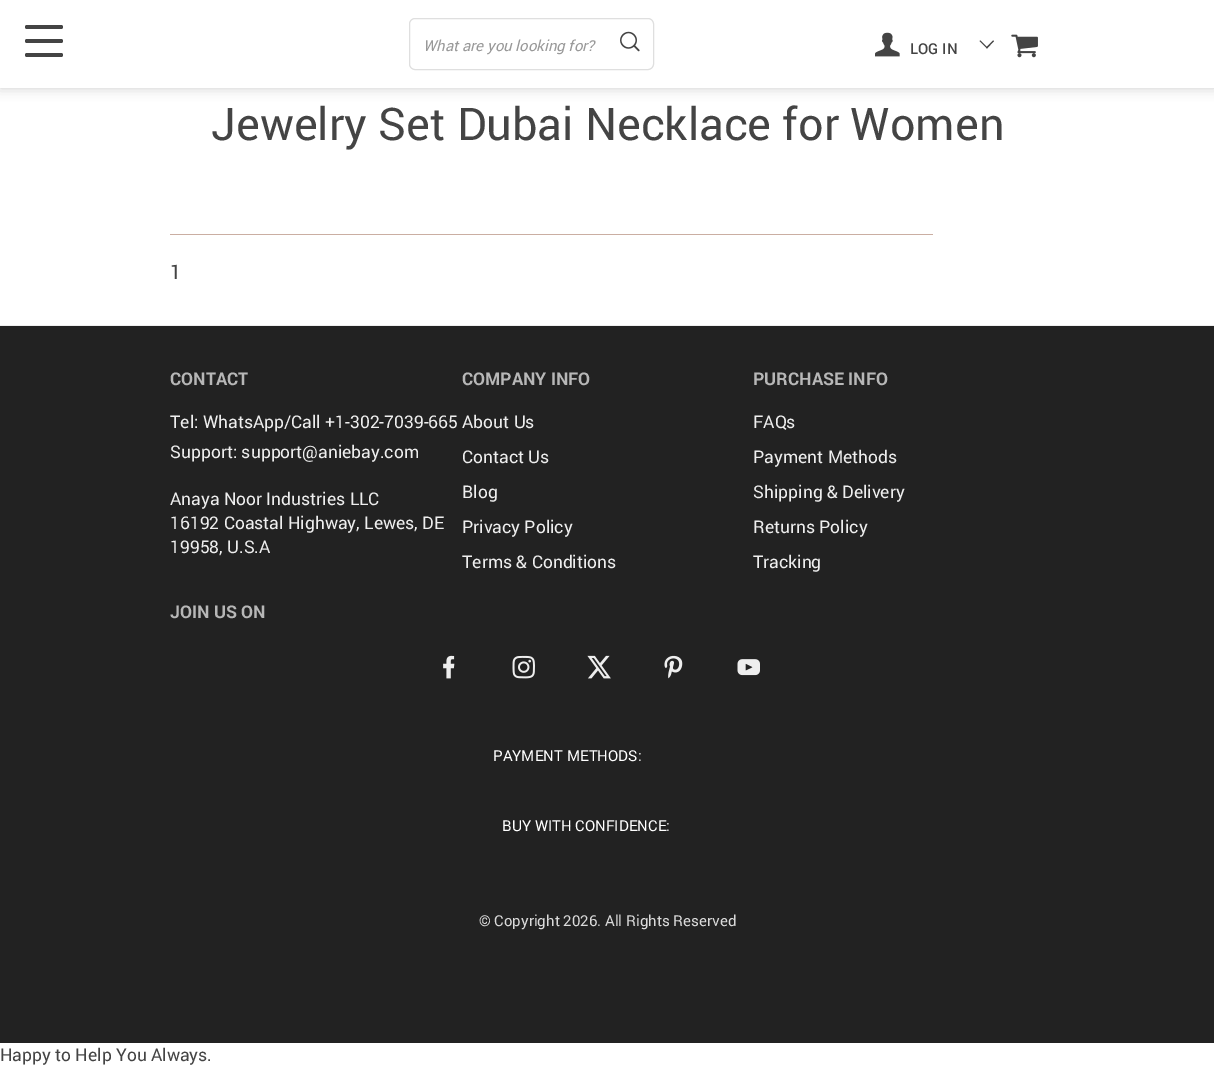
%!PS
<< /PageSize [1214 1086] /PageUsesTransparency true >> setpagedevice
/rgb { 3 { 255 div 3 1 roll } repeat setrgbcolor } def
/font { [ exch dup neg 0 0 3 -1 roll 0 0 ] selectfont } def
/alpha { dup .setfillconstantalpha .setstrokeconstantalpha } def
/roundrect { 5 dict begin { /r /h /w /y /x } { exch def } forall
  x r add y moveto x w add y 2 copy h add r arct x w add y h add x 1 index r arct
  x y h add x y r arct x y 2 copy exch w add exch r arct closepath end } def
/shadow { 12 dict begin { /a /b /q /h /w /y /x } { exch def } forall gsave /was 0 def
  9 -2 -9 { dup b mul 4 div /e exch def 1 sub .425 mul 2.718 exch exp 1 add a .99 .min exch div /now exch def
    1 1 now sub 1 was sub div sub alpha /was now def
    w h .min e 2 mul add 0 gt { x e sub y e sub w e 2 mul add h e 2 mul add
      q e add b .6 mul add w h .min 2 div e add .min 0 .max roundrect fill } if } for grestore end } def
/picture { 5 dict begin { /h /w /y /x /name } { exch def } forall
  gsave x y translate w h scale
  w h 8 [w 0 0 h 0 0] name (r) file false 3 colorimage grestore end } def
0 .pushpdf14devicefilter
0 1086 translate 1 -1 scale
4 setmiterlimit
255 255 255 rgb
0 0 1214 1086 rectfill
204 204 204 rgb
0 0 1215 88 0 6 1 shadow
255 255 255 rgb
0 0 1214 88 rectfill
68 68 68 rgb
25 25 38 4 2 roundrect fill
25 39 38 4 2 roundrect fill
25 53 38 4 2 roundrect fill
223 223 223 rgb
409.5 18.5 244 51 5.5 roundrect stroke
(img/1.rgb) 620 31 20 21 picture
(img/2.rgb) 875 32 25 25 picture
68 68 68 rgb
994 41 moveto 987 48.5 lineto 986 47.5 lineto 993 40.5 lineto closepath fill
987.5 47.5 moveto 987 48.5 lineto 979.5 41 lineto 980.5 40.5 lineto closepath fill
(img/3.rgb) 1011 34 27 24 picture
[
  [170 234 763 1 202 174 162]
  [0 326 1214 717 34 34 34]
  [0 325 1214 1 238 238 238]
] { aload pop rgb rectfill } forall
(img/4.rgb) 443 655 12 24 picture
(img/5.rgb) 512 655 23 24 picture
(img/6.rgb) 587 655 24 24 picture
(img/7.rgb) 664 655 19 24 picture
(img/8.rgb) 737 659 23 17 picture
/Roboto-Italic 15 font
153 153 153 rgb
423 51 moveto (What are you looking for?) show
/Roboto-Medium 15 font
68 68 68 rgb
910 54 moveto (LOG IN) show
/Roboto-Regular 45 font
211 140 moveto (Jewelry Set Dubai Necklace for Women) show
/Roboto-Regular 20 font
170 279 moveto (1) show
/Roboto-Bold 17.5 font
183 183 183 rgb
170 385 moveto (CONTACT) show
/Roboto-Regular 17.5 font
238 238 238 rgb
[
  [(Tel: WhatsApp/Call +1-302-7039-665) 170 428]
  [(Support: support@aniebay.com) 170 458]
  [(Anaya Noor Industries LLC) 170 505]
  [(16192 Coastal Highway, Lewes, DE) 170 529]
  [(19958, U.S.A) 170 553]
] { aload pop moveto show } forall
/Roboto-Bold 17.5 font
183 183 183 rgb
462 385 moveto (COMPANY INFO) show
/Roboto-Regular 17.5 font
238 238 238 rgb
[
  [(About Us) 462 428]
  [(Contact Us) 462 463]
  [(Blog) 462 498]
  [(Privacy Policy) 462 533]
  [(Terms & Conditions) 462 568]
] { aload pop moveto show } forall
/Roboto-Bold 17.5 font
183 183 183 rgb
753 385 moveto (PURCHASE INFO) show
/Roboto-Regular 17.5 font
238 238 238 rgb
[
  [(FAQs) 753 428]
  [(Payment Methods) 753 463]
  [(Shipping & Delivery) 753 498]
  [(Returns Policy) 753 533]
  [(Tracking) 753 568]
] { aload pop moveto show } forall
/Roboto-Bold 17.5 font
183 183 183 rgb
170 618 moveto (JOIN US ON) show
/Roboto-Regular 15 font
255 255 255 rgb
493 761 moveto (PAYMENT METHODS:) show
502 831 moveto (BUY WITH CONFIDENCE:) show
218 218 218 rgb
479 926 moveto (© Copyright 2026. All Rights Reserved) show
/Roboto-Regular 17.5 font
68 68 68 rgb
0 1061 moveto (Happy to Help You Always.) show
.poppdf14devicefilter showpage
